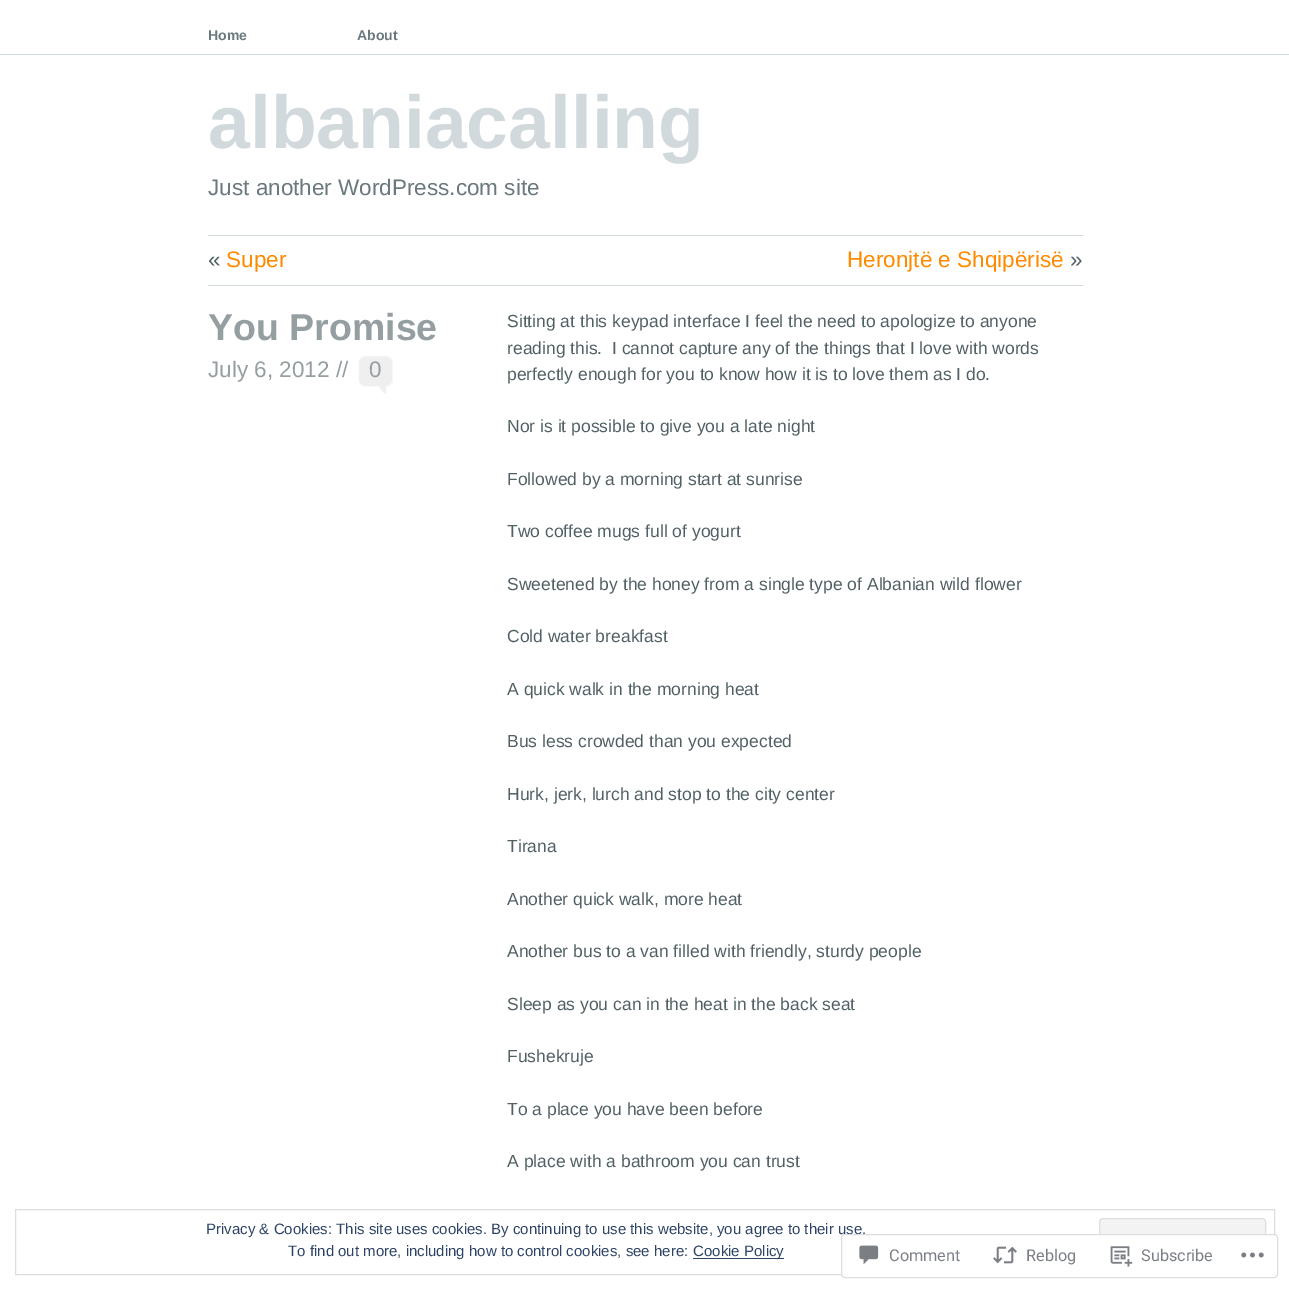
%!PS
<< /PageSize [1289 1289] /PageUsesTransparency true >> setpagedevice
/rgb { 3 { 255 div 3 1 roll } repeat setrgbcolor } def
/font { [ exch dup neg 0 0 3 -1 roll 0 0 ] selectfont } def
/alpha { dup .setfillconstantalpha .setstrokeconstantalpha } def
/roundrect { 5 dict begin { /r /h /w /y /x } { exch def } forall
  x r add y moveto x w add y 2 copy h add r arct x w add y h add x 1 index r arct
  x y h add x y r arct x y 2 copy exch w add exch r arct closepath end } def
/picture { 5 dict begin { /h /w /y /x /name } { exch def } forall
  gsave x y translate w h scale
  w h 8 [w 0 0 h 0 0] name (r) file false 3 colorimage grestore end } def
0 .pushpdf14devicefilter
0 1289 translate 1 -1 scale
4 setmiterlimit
255 255 255 rgb
0 0 1289 1289 rectfill
[
  [0 54 1289 1 209 217 220]
  [208 235 875 1 209 217 220]
  [208 285 875 1 209 217 220]
] { aload pop rgb rectfill } forall
(img/1.rgb) 358 356 35 38 picture
222 222 222 rgb
15.5 1209.5 1259 65 rectstroke
243 243 243 rgb
1099.5 1218.5 166 47 3.5 roundrect gsave fill grestore
222 222 222 rgb
stroke
46 68 103 rgb
693 1258 91 1 rectfill
/LiberationSans-Bold 14 font
106 121 125 rgb
208 40 moveto (Home) show
357 40 moveto (About) show
/LiberationSans-Bold 75 font
209 217 220 rgb
208 148 moveto (albaniacalling) show
/LiberationSans-Regular 22.5 font
106 121 125 rgb
208 195 moveto (Just another WordPress.com site) show
81 96 100 rgb
208 267 moveto («) show
255 138 0 rgb
226 267 moveto (Super) show
847 267 moveto (Heronjtë e Shqipërisë) show
81 96 100 rgb
1070 267 moveto (») show
/LiberationSans-Bold 37.5 font
149 158 161 rgb
208 340 moveto (You Promise) show
/LiberationSans-Regular 22.5 font
208 377 moveto (July 6, 2012 //) show
369 377 moveto (0) show
/LiberationSans-Regular 17.5 font
81 96 100 rgb
[
  [(Sitting at this keypad interface I feel the need to apologize to anyone) 507 327]
  [(reading this.  I cannot capture any of the things that I love with words) 507 354]
  [(perfectly enough for you to know how it is to love them as I do.) 507 380]
  [(Nor is it possible to give you a late night) 507 432]
  [(Followed by a morning start at sunrise) 507 485]
  [(Two coffee mugs full of yogurt) 507 537]
  [(Sweetened by the honey from a single type of Albanian wild flower) 507 590]
  [(Cold water breakfast) 507 642]
  [(A quick walk in the morning heat) 507 695]
  [(Bus less crowded than you expected) 507 747]
  [(Hurk, jerk, lurch and stop to the city center) 507 800]
  [(Tirana) 507 852]
  [(Another quick walk, more heat) 507 905]
  [(Another bus to a van filled with friendly, sturdy people) 507 957]
  [(Sleep as you can in the heat in the back seat) 507 1010]
  [(Fushekruje) 507 1062]
  [(To a place you have been before) 507 1115]
  [(A place with a bathroom you can trust) 507 1167]
] { aload pop moveto show } forall
/LiberationSans-Regular 15 font
46 68 103 rgb
[
  [(Privacy & Cookies: This site uses cookies. By continuing to use this website, you agree to their use.) 206 1234]
  [(To find out more, including how to control cookies, see here:) 288 1256]
  [(Cookie Policy) 693 1256]
] { aload pop moveto show } forall
0.98 alpha
255 255 255 rgb
841.5 1234.5 436 43 3.5 roundrect fill
1 alpha
221 221 223 rgb
841.5 1234.5 436 43 3.5 roundrect stroke
(img/2.rgb) 859 1245 20 20 picture
/Roboto-Regular 16.25 font
123 127 133 rgb
889 1261 moveto (Comment) show
(img/3.rgb) 993 1246 24 18 picture
1026 1261 moveto (Reblog) show
(img/4.rgb) 1110 1246 23 21 picture
1141 1261 moveto (Subscribe) show
(img/5.rgb) 1241 1252 23 6 picture
.poppdf14devicefilter showpage
